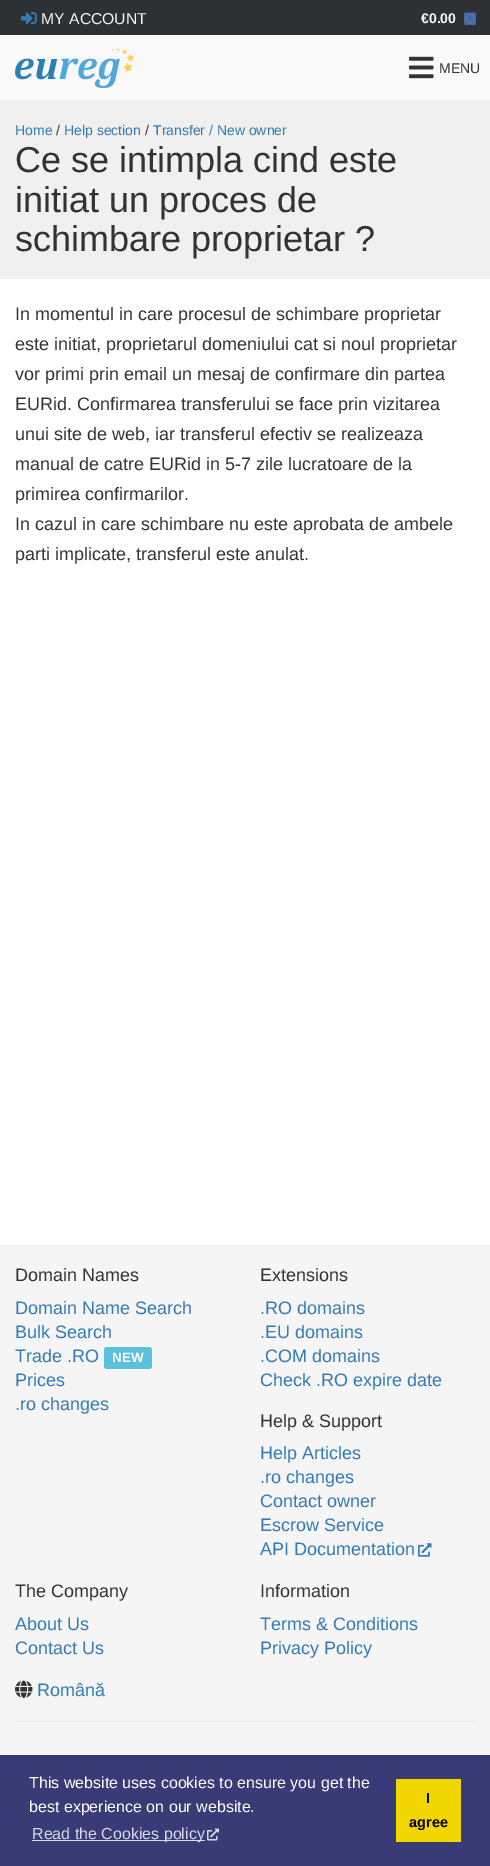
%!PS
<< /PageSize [490 1866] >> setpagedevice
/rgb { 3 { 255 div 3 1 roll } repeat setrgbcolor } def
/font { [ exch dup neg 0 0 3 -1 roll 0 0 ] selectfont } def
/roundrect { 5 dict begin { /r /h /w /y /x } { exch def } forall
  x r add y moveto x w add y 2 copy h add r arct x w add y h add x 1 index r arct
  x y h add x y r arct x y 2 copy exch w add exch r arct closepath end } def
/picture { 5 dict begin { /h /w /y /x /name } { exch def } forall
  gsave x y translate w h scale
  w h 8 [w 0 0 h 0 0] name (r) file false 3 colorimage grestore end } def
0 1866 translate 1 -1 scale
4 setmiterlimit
255 255 255 rgb
0 0 490 1866 rectfill
46 49 51 rgb
0 0 490 35 rectfill
(img/1.rgb) 21 12 16 13 picture
(img/2.rgb) 464 12 12 13 picture
249 249 249 rgb
0 35 490 65 rectfill
(img/3.rgb) 15 48 119 40 picture
(img/4.rgb) 409 56 25 23 picture
[
  [0 100 490 179 240 240 240]
  [0 1245 490 1 240 240 240]
  [0 1246 490 509 245 245 245]
] { aload pop rgb rectfill } forall
91 192 222 rgb
104 1347 48 22 3 roundrect fill
(img/5.rgb) 418 1543 14 14 picture
(img/6.rgb) 15 1680 18 18 picture
[
  [15 1721 460 1 238 238 238]
  [0 1755 490 111 56 59 117]
  [32 1840 173 1 215 216 227]
] { aload pop rgb rectfill } forall
(img/7.rgb) 207 1828 12 13 picture
241 214 0 rgb
396 1779 65 63 rectfill
/LiberationSans-Regular 15.75 font
247 245 242 rgb
41 24 moveto (MY ACCOUNT) show
/LiberationSans-Bold 14 font
421 23 moveto (€0.00) show
/LiberationSans-Regular 14 font
51 51 51 rgb
439 73 moveto (MENU) show
51 122 183 rgb
15 135 moveto (Home) show
51 51 51 rgb
56 135 moveto (/) show
51 122 183 rgb
64 135 moveto (Help section) show
51 51 51 rgb
145 135 moveto (/) show
51 122 183 rgb
153 135 moveto (Transfer / New owner) show
/LiberationSans-Regular 36 font
51 51 51 rgb
[
  [(Ce se intimpla cind este) 15 172]
  [(initiat un proces de) 15 212]
  [(schimbare proprietar ?) 15 251]
] { aload pop moveto show } forall
/LiberationSans-Regular 18 font
[
  [(In momentul in care procesul de schimbare proprietar) 15 320]
  [(este initiat, proprietarul domeniului cat si noul proprietar) 15 350]
  [(vor primi prin email un mesaj de confirmare din partea) 15 380]
  [(EURid. Confirmarea transferului se face prin vizitarea) 15 410]
  [(unui site de web, iar transferul efectiv se realizeaza) 15 440]
  [(manual de catre EURid in 5-7 zile lucratoare de la) 15 470]
  [(primirea confirmarilor.) 15 500]
  [(In cazul in care schimbare nu este aprobata de ambele) 15 530]
  [(parti implicate, transferul este anulat.) 15 560]
  [(Domain Names) 15 1281]
] { aload pop moveto show } forall
51 122 183 rgb
[
  [(Domain Name Search) 15 1314]
  [(Bulk Search) 15 1338]
  [(Trade .RO) 15 1362]
] { aload pop moveto show } forall
/LiberationSans-Bold 13.5 font
255 255 255 rgb
112 1362 moveto (NEW) show
/LiberationSans-Regular 18 font
51 122 183 rgb
15 1386 moveto (Prices) show
15 1410 moveto (.ro changes) show
51 51 51 rgb
260 1281 moveto (Extensions) show
51 122 183 rgb
[
  [(.RO domains) 260 1314]
  [(.EU domains) 260 1338]
  [(.COM domains) 260 1362]
  [(Check .RO expire date) 260 1386]
] { aload pop moveto show } forall
51 51 51 rgb
260 1427 moveto (Help & Support) show
51 122 183 rgb
[
  [(Help Articles) 260 1459]
  [(.ro changes) 260 1483]
  [(Contact owner) 260 1507]
  [(Escrow Service) 260 1531]
  [(API Documentation) 260 1555]
] { aload pop moveto show } forall
51 51 51 rgb
15 1597 moveto (The Company) show
51 122 183 rgb
15 1630 moveto (About Us) show
15 1654 moveto (Contact Us) show
51 51 51 rgb
260 1597 moveto (Information) show
51 122 183 rgb
[
  [(Terms & Conditions) 260 1630]
  [(Privacy Policy) 260 1654]
  [(Română) 37 1696]
] { aload pop moveto show } forall
/LiberationSans-Regular 16 font
255 255 255 rgb
29 1788 moveto (This website uses cookies to ensure you get the) show
29 1812 moveto (best experience on our website.) show
215 216 227 rgb
32 1839 moveto (Read the Cookies policy) show
/LiberationSans-Bold 14.5 font
0 0 0 rgb
426 1803 moveto (I) show
409 1827 moveto (agree) show
showpage
